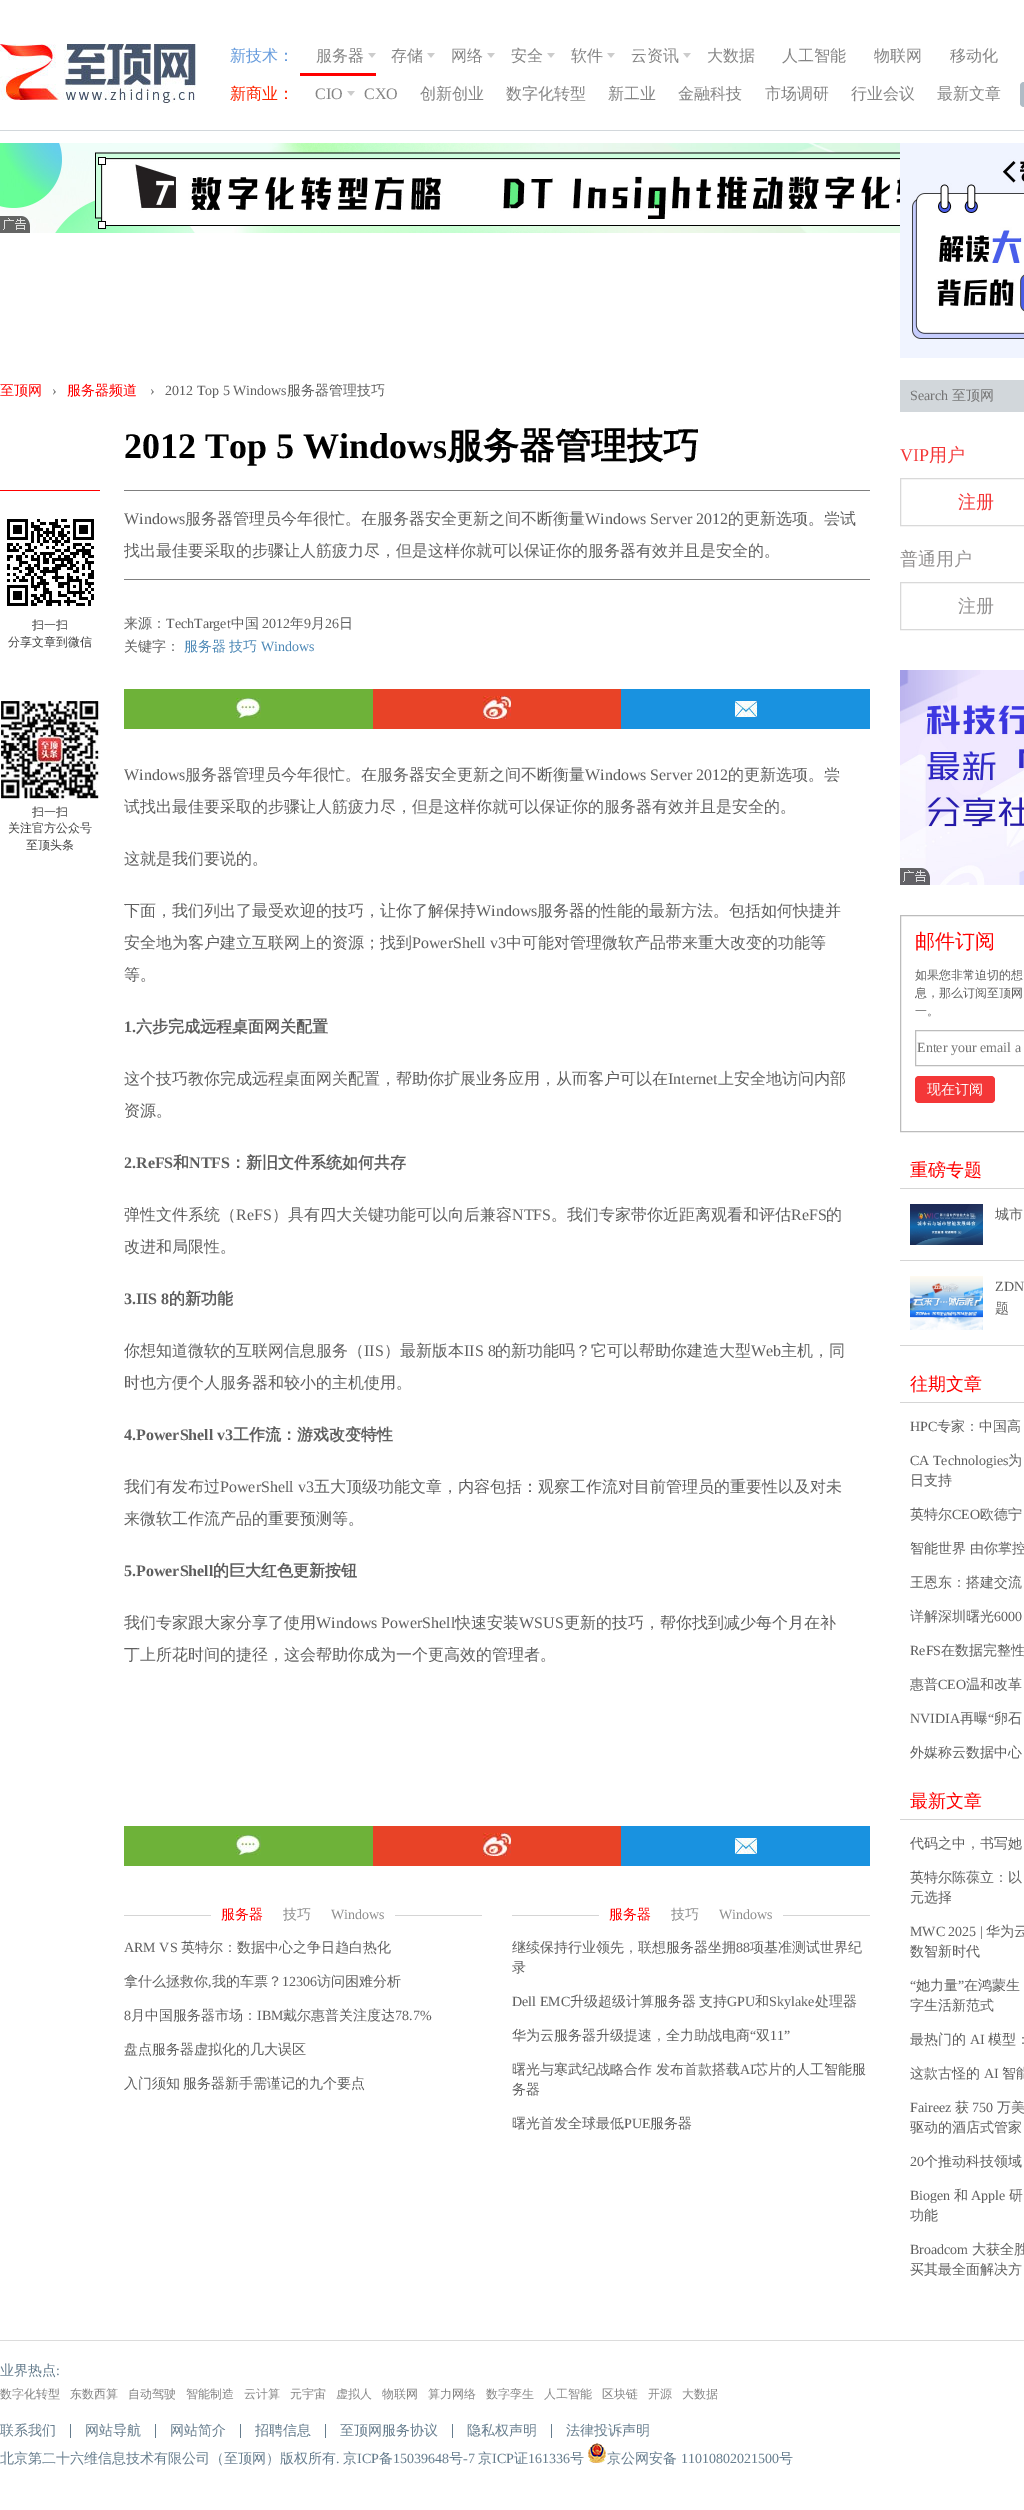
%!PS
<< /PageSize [1024 2510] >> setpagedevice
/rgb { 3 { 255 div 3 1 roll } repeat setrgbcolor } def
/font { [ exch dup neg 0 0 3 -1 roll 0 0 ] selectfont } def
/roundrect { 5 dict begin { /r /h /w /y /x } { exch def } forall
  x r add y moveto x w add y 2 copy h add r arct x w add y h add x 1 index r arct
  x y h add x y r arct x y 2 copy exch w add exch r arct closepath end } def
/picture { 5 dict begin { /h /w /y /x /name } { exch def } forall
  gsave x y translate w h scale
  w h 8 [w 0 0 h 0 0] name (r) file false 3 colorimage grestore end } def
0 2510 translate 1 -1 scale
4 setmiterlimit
255 255 255 rgb
0 0 1024 2510 rectfill
210 215 219 rgb
0 130 1024 1 rectfill
(img/1.rgb) 0 44 196 59 picture
(img/2.rgb) 368 53 8 5 picture
255 0 0 rgb
300 73 76 3 rectfill
(img/2.rgb) 427 53 8 5 picture
(img/2.rgb) 487 53 8 5 picture
(img/2.rgb) 547 53 8 5 picture
(img/2.rgb) 607 53 8 5 picture
(img/2.rgb) 683 53 8 5 picture
(img/2.rgb) 347 91 8 5 picture
175 187 197 rgb
1020 82 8 25 4 roundrect fill
(img/3.rgb) 0 143 900 90 picture
(img/4.rgb) 0 216 30 17 picture
(img/5.rgb) 900 143 124 215 picture
255 0 0 rgb
0 490 100 1 rectfill
(img/6.rgb) 7 519 87 87 picture
(img/7.rgb) 1 701 99 98 picture
[
  [124 490 746 1 127 127 127]
  [124 579 746 1 127 127 127]
  [124 689 249 40 110 178 57]
] { aload pop rgb rectfill } forall
(img/8.rgb) 236 698 25 20 picture
232 67 39 rgb
373 689 248 40 rectfill
(img/9.rgb) 483 696 28 23 picture
25 146 224 rgb
621 689 249 40 rectfill
(img/10.rgb) 735 701 22 16 picture
110 178 57 rgb
124 1826 249 40 rectfill
(img/8.rgb) 236 1835 25 20 picture
232 67 39 rgb
373 1826 248 40 rectfill
(img/9.rgb) 483 1833 28 23 picture
25 146 224 rgb
621 1826 249 40 rectfill
(img/10.rgb) 735 1838 22 16 picture
[
  [124 1915 358 1 213 213 213]
  [211 1915 184 1 255 255 255]
  [512 1915 358 1 213 213 213]
  [599 1915 184 1 255 255 255]
  [900 380 124 32 210 215 219]
] { aload pop rgb rectfill } forall
217 217 217 rgb
900.5 478.5 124 47 rectstroke
900.5 582.5 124 47 rectstroke
(img/11.rgb) 900 670 124 215 picture
(img/12.rgb) 900 868 30 17 picture
188 188 188 rgb
900.5 915.5 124 216 rectstroke
915.5 1030.5 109 35 rectstroke
244 55 56 rgb
915 1076 80 27 4 roundrect fill
213 213 213 rgb
900 1188 124 1 rectfill
900 1260 124 1 rectfill
(img/13.rgb) 910 1204 73 41 picture
900 1345 124 1 rectfill
(img/14.rgb) 910 1276 73 54 picture
[
  [900 1402 124 1 213 213 213]
  [900 1819 124 1 213 213 213]
  [0 2340 1024 1 220 220 220]
  [70 2424 1 14 101 124 141]
  [155 2424 1 14 101 124 141]
  [240 2424 1 14 101 124 141]
  [325 2424 1 14 101 124 141]
  [452 2424 1 14 101 124 141]
  [551 2424 1 14 101 124 141]
] { aload pop rgb rectfill } forall
(img/15.rgb) 588 2443 18 20 picture
/WenQuanYiZenHei-Medium 16 font
103 156 221 rgb
230 61 moveto (新技术：) show
132 132 132 rgb
[
  [(服务器) 316 61]
  [(存储) 391 61]
  [(网络) 451 61]
  [(安全) 511 61]
  [(软件) 571 61]
  [(云资讯) 631 61]
  [(大数据) 707 61]
  [(人工智能) 782 61]
  [(物联网) 874 61]
  [(移动化) 950 61]
] { aload pop moveto show } forall
255 38 1 rgb
230 99 moveto (新商业：) show
/LiberationSerif-Regular 16 font
132 132 132 rgb
315 99 moveto (CIO) show
364 99 moveto (CXO) show
/WenQuanYiZenHei-Medium 16 font
[
  [(创新创业) 420 99]
  [(数字化转型) 506 99]
  [(新工业) 608 99]
  [(金融科技) 678 99]
  [(市场调研) 765 99]
  [(行业会议) 851 99]
  [(最新文章) 937 99]
] { aload pop moveto show } forall
/WenQuanYiZenHei-Medium 14 font
255 0 0 rgb
0 395 moveto (至顶网) show
/LiberationSerif-Regular 14 font
95 95 95 rgb
52 395 moveto (›) show
/WenQuanYiZenHei-Medium 14 font
255 0 0 rgb
67 395 moveto (服务器频道) show
/LiberationSerif-Regular 14 font
95 95 95 rgb
150 395 moveto (›) show
165 395 moveto (2012 Top 5 Windows) show
/WenQuanYiZenHei-Medium 14 font
287 395 moveto (服务器管理技巧) show
/LiberationSerif-Bold 36 font
0 0 0 rgb
124 458 moveto (2012 Top 5 Windows) show
/WenQuanYiZenHei-Bold 36 font
447 458 moveto (服务器管理技巧) show
/WenQuanYiZenHei-Medium 12 font
64 64 64 rgb
[
  [(扫一扫) 32 629]
  [(分享文章到微信) 8 646]
  [(扫一扫) 32 816]
  [(关注官方公众号) 8 832]
  [(至顶头条) 26 849]
] { aload pop moveto show } forall
/LiberationSerif-Regular 16 font
95 95 95 rgb
124 524 moveto (Windows) show
/WenQuanYiZenHei-Medium 16 font
185 524 moveto (服务器管理员今年很忙。在服务器安全更新之间不断衡量) show
/LiberationSerif-Regular 16 font
585 524 moveto (Windows Server 2012) show
/WenQuanYiZenHei-Medium 16 font
728 524 moveto (的更新选项。尝试) show
124 556 moveto (找出最佳要采取的步骤让人筋疲力尽，但是这样你就可以保证你的服务器有效并且是安全的。) show
/WenQuanYiZenHei-Medium 14 font
124 628 moveto (来源：) show
/LiberationSerif-Regular 14 font
166 628 moveto (TechTarget) show
/WenQuanYiZenHei-Medium 14 font
231 628 moveto (中国) show
/LiberationSerif-Regular 14 font
262 628 moveto (2012) show
/WenQuanYiZenHei-Medium 14 font
290 628 moveto (年) show
/LiberationSerif-Regular 14 font
304 628 moveto (9) show
/WenQuanYiZenHei-Medium 14 font
311 628 moveto (月) show
/LiberationSerif-Regular 14 font
325 628 moveto (26) show
/WenQuanYiZenHei-Medium 14 font
339 628 moveto (日) show
124 651 moveto (关键字：) show
76 136 182 rgb
184 651 moveto (服务器) show
229 651 moveto (技巧) show
/LiberationSerif-Regular 14 font
261 651 moveto (Windows) show
/LiberationSerif-Regular 16 font
95 95 95 rgb
124 780 moveto (Windows) show
/WenQuanYiZenHei-Medium 16 font
185 780 moveto (服务器管理员今年很忙。在服务器安全更新之间不断衡量) show
/LiberationSerif-Regular 16 font
585 780 moveto (Windows Server 2012) show
/WenQuanYiZenHei-Medium 16 font
[
  [(的更新选项。尝) 728 780]
  [(试找出最佳要采取的步骤让人筋疲力尽，但是这样你就可以保证你的服务器有效并且是安全的。) 124 812]
  [(这就是我们要说的。) 124 864]
  [(下面，我们列出了最受欢迎的技巧，让你了解保持) 124 916]
] { aload pop moveto show } forall
/LiberationSerif-Regular 16 font
476 916 moveto (Windows) show
/WenQuanYiZenHei-Medium 16 font
537 916 moveto (服务器的性能的最新方法。包括如何快捷并) show
124 948 moveto (安全地为客户建立互联网上的资源；找到) show
/LiberationSerif-Regular 16 font
412 948 moveto (PowerShell v3) show
/WenQuanYiZenHei-Medium 16 font
506 948 moveto (中可能对管理微软产品带来重大改变的功能等) show
124 980 moveto (等。) show
/LiberationSerif-Bold 16 font
124 1032 moveto (1.) show
/WenQuanYiZenHei-Bold 16 font
136 1032 moveto (六步完成远程桌面网关配置) show
/WenQuanYiZenHei-Medium 16 font
124 1084 moveto (这个技巧教你完成远程桌面网关配置，帮助你扩展业务应用，从而客户可以在) show
/LiberationSerif-Regular 16 font
668 1084 moveto (Internet) show
/WenQuanYiZenHei-Medium 16 font
718 1084 moveto (上安全地访问内部) show
124 1116 moveto (资源。) show
/LiberationSerif-Bold 16 font
124 1168 moveto (2.ReFS) show
/WenQuanYiZenHei-Bold 16 font
173 1168 moveto (和) show
/LiberationSerif-Bold 16 font
189 1168 moveto (NTFS) show
/WenQuanYiZenHei-Bold 16 font
230 1168 moveto (：新旧文件系统如何共存) show
/WenQuanYiZenHei-Medium 16 font
124 1220 moveto (弹性文件系统（) show
/LiberationSerif-Regular 16 font
236 1220 moveto (ReFS) show
/WenQuanYiZenHei-Medium 16 font
272 1220 moveto (）具有四大关键功能可以向后兼容) show
/LiberationSerif-Regular 16 font
512 1220 moveto (NTFS) show
/WenQuanYiZenHei-Medium 16 font
551 1220 moveto (。我们专家带你近距离观看和评估) show
/LiberationSerif-Regular 16 font
791 1220 moveto (ReFS) show
/WenQuanYiZenHei-Medium 16 font
826 1220 moveto (的) show
124 1252 moveto (改进和局限性。) show
/LiberationSerif-Bold 16 font
124 1304 moveto (3.IIS 8) show
/WenQuanYiZenHei-Bold 16 font
169 1304 moveto (的新功能) show
/WenQuanYiZenHei-Medium 16 font
124 1356 moveto (你想知道微软的互联网信息服务（) show
/LiberationSerif-Regular 16 font
364 1356 moveto (IIS) show
/WenQuanYiZenHei-Medium 16 font
384 1356 moveto (）最新版本) show
/LiberationSerif-Regular 16 font
464 1356 moveto (IIS 8) show
/WenQuanYiZenHei-Medium 16 font
495 1356 moveto (的新功能吗？它可以帮助你建造大型) show
/LiberationSerif-Regular 16 font
751 1356 moveto (Web) show
/WenQuanYiZenHei-Medium 16 font
781 1356 moveto (主机，同) show
124 1388 moveto (时也方便个人服务器和较小的主机使用。) show
/LiberationSerif-Bold 16 font
124 1440 moveto (4.PowerShell v3) show
/WenQuanYiZenHei-Bold 16 font
233 1440 moveto (工作流：游戏改变特性) show
/WenQuanYiZenHei-Medium 16 font
124 1492 moveto (我们有发布过) show
/LiberationSerif-Regular 16 font
220 1492 moveto (PowerShell v3) show
/WenQuanYiZenHei-Medium 16 font
314 1492 moveto (五大顶级功能文章，内容包括：观察工作流对目前管理员的重要性以及对未) show
124 1524 moveto (来微软工作流产品的重要预测等。) show
/LiberationSerif-Bold 16 font
124 1576 moveto (5.PowerShell) show
/WenQuanYiZenHei-Bold 16 font
213 1576 moveto (的巨大红色更新按钮) show
/WenQuanYiZenHei-Medium 16 font
124 1628 moveto (我们专家跟大家分享了使用) show
/LiberationSerif-Regular 16 font
316 1628 moveto (Windows PowerShell) show
/WenQuanYiZenHei-Medium 16 font
455 1628 moveto (快速安装) show
/LiberationSerif-Regular 16 font
519 1628 moveto (WSUS) show
/WenQuanYiZenHei-Medium 16 font
564 1628 moveto (更新的技巧，帮你找到减少每个月在补) show
124 1660 moveto (丁上所花时间的捷径，这会帮助你成为一个更高效的管理者。) show
/WenQuanYiZenHei-Medium 14 font
255 0 0 rgb
221 1919 moveto (服务器) show
140 140 140 rgb
283 1919 moveto (技巧) show
/LiberationSerif-Regular 14 font
331 1919 moveto (Windows) show
95 95 95 rgb
124 1952 moveto (ARM VS) show
/WenQuanYiZenHei-Medium 14 font
181 1952 moveto (英特尔：数据中心之争日趋白热化) show
124 1986 moveto (拿什么拯救你) show
/LiberationSerif-Regular 14 font
208 1986 moveto (,) show
/WenQuanYiZenHei-Medium 14 font
212 1986 moveto (我的车票？) show
/LiberationSerif-Regular 14 font
282 1986 moveto (12306) show
/WenQuanYiZenHei-Medium 14 font
317 1986 moveto (访问困难分析) show
/LiberationSerif-Regular 14 font
124 2020 moveto (8) show
/WenQuanYiZenHei-Medium 14 font
131 2020 moveto (月中国服务器市场：) show
/LiberationSerif-Regular 14 font
257 2020 moveto (IBM) show
/WenQuanYiZenHei-Medium 14 font
283 2020 moveto (戴尔惠普关注度达) show
/LiberationSerif-Regular 14 font
395 2020 moveto (78.7%) show
/WenQuanYiZenHei-Medium 14 font
124 2054 moveto (盘点服务器虚拟化的几大误区) show
124 2088 moveto -1 0 32 (入门须知 服务器新手需谨记的九个要点) widthshow
255 0 0 rgb
609 1919 moveto (服务器) show
140 140 140 rgb
671 1919 moveto (技巧) show
/LiberationSerif-Regular 14 font
719 1919 moveto (Windows) show
/WenQuanYiZenHei-Medium 14 font
95 95 95 rgb
512 1952 moveto (继续保持行业领先，联想服务器坐拥) show
/LiberationSerif-Regular 14 font
736 1952 moveto (88) show
/WenQuanYiZenHei-Medium 14 font
750 1952 moveto (项基准测试世界纪) show
512 1972 moveto (录) show
/LiberationSerif-Regular 14 font
512 2006 moveto (Dell EMC) show
/WenQuanYiZenHei-Medium 14 font
570 2006 moveto (升级超级计算服务器) show
699 2006 moveto (支持) show
/LiberationSerif-Regular 14 font
727 2006 moveto (GPU) show
/WenQuanYiZenHei-Medium 14 font
755 2006 moveto (和) show
/LiberationSerif-Regular 14 font
769 2006 moveto (Skylake) show
/WenQuanYiZenHei-Medium 14 font
815 2006 moveto (处理器) show
512 2040 moveto (华为云服务器升级提速，全力助战电商) show
/LiberationSerif-Regular 14 font
750 2040 moveto (“) show
/WenQuanYiZenHei-Medium 14 font
756 2040 moveto (双) show
/LiberationSerif-Regular 14 font
770 2040 moveto (11”) show
/WenQuanYiZenHei-Medium 14 font
512 2074 moveto (曙光与寒武纪战略合作) show
656 2074 moveto (发布首款搭载) show
/LiberationSerif-Regular 14 font
740 2074 moveto (AI) show
/WenQuanYiZenHei-Medium 14 font
[
  [(芯片的人工智能服) 754 2074]
  [(务器) 512 2094]
  [(曙光首发全球最低) 512 2128]
] { aload pop moveto show } forall
/LiberationSerif-Regular 14 font
624 2128 moveto (PUE) show
/WenQuanYiZenHei-Medium 14 font
650 2128 moveto (服务器) show
/LiberationSerif-Regular 14 font
117 117 117 rgb
910 400 moveto (Search) show
/WenQuanYiZenHei-Medium 14 font
952 400 moveto (至顶网) show
/LiberationSerif-Regular 18 font
244 55 56 rgb
900 461 moveto (VIP) show
/WenQuanYiZenHei-Medium 18 font
929 461 moveto (用户) show
958 508 moveto (注册) show
148 146 146 rgb
900 565 moveto (普通用户) show
958 612 moveto (注册) show
/WenQuanYiZenHei-Medium 20 font
255 0 0 rgb
915 948 moveto (邮件订阅) show
/WenQuanYiZenHei-Medium 12 font
95 95 95 rgb
[
  [(如果您非常迫切的想) 915 979]
  [(息，那么订阅至顶网) 915 997]
  [(一。) 915 1015]
] { aload pop moveto show } forall
/LiberationSerif-Regular 14 font
117 117 117 rgb
917 1052 moveto (Enter your email a) show
/WenQuanYiZenHei-Medium 14 font
255 255 255 rgb
927 1094 moveto (现在订阅) show
/WenQuanYiZenHei-Medium 18 font
255 0 0 rgb
910 1176 moveto (重磅专题) show
/WenQuanYiZenHei-Medium 14 font
95 95 95 rgb
995 1219 moveto (城市) show
/LiberationSerif-Regular 14 font
995 1291 moveto (ZDN) show
/WenQuanYiZenHei-Medium 14 font
995 1313 moveto (题) show
/WenQuanYiZenHei-Medium 18 font
255 0 0 rgb
910 1390 moveto (往期文章) show
/LiberationSerif-Regular 14 font
95 95 95 rgb
910 1431 moveto (HPC) show
/WenQuanYiZenHei-Medium 14 font
937 1431 moveto (专家：中国高) show
/LiberationSerif-Regular 14 font
910 1465 moveto (CA Technologies) show
/WenQuanYiZenHei-Medium 14 font
[
  [(为) 1008 1465]
  [(日支持) 910 1485]
  [(英特尔) 910 1519]
] { aload pop moveto show } forall
/LiberationSerif-Regular 14 font
952 1519 moveto (CEO) show
/WenQuanYiZenHei-Medium 14 font
980 1519 moveto (欧德宁) show
910 1553 moveto (智能世界 由你掌控) show
910 1587 moveto -1 0 32 (王恩东：搭建交流) widthshow
910 1621 moveto (详解深圳曙光) show
/LiberationSerif-Regular 14 font
994 1621 moveto (6000) show
910 1655 moveto (ReFS) show
/WenQuanYiZenHei-Medium 14 font
941 1655 moveto (在数据完整性) show
910 1689 moveto (惠普) show
/LiberationSerif-Regular 14 font
938 1689 moveto (CEO) show
/WenQuanYiZenHei-Medium 14 font
966 1689 moveto (温和改革) show
/LiberationSerif-Regular 14 font
910 1723 moveto (NVIDIA) show
/WenQuanYiZenHei-Medium 14 font
960 1723 moveto (再曝) show
/LiberationSerif-Regular 14 font
988 1723 moveto (“) show
/WenQuanYiZenHei-Medium 14 font
994 1723 moveto (卵石) show
910 1757 moveto (外媒称云数据中心) show
/WenQuanYiZenHei-Medium 18 font
255 0 0 rgb
910 1807 moveto (最新文章) show
/WenQuanYiZenHei-Medium 14 font
95 95 95 rgb
[
  [(代码之中，书写她) 910 1848]
  [(英特尔陈葆立：以) 910 1882]
  [(元选择) 910 1902]
] { aload pop moveto show } forall
/LiberationSerif-Regular 14 font
910 1936 moveto (MWC 2025 |) show
/WenQuanYiZenHei-Medium 14 font
986 1936 moveto (华为云) show
910 1956 moveto (数智新时代) show
/LiberationSerif-Regular 14 font
910 1990 moveto (“) show
/WenQuanYiZenHei-Medium 14 font
916 1990 moveto (她力量) show
/LiberationSerif-Regular 14 font
958 1990 moveto (”) show
/WenQuanYiZenHei-Medium 14 font
[
  [(在鸿蒙生) 964 1990]
  [(字生活新范式) 910 2010]
  [(最热门的) 910 2044]
] { aload pop moveto show } forall
/LiberationSerif-Regular 14 font
970 2044 moveto (AI) show
/WenQuanYiZenHei-Medium 14 font
988 2044 moveto (模型：) show
910 2078 moveto (这款古怪的) show
/LiberationSerif-Regular 14 font
984 2078 moveto (AI) show
/WenQuanYiZenHei-Medium 14 font
1002 2078 moveto (智能) show
/LiberationSerif-Regular 14 font
910 2112 moveto (Faireez) show
/WenQuanYiZenHei-Medium 14 font
955 2112 moveto (获) show
/LiberationSerif-Regular 14 font
972 2112 moveto (750) show
/WenQuanYiZenHei-Medium 14 font
997 2112 moveto (万美) show
910 2132 moveto (驱动的酒店式管家) show
/LiberationSerif-Regular 14 font
910 2166 moveto (20) show
/WenQuanYiZenHei-Medium 14 font
924 2166 moveto (个推动科技领域) show
/LiberationSerif-Regular 14 font
910 2200 moveto (Biogen) show
/WenQuanYiZenHei-Medium 14 font
954 2200 moveto (和) show
/LiberationSerif-Regular 14 font
971 2200 moveto (Apple) show
/WenQuanYiZenHei-Medium 14 font
1009 2200 moveto (研) show
910 2220 moveto (功能) show
/LiberationSerif-Regular 14 font
910 2254 moveto (Broadcom) show
/WenQuanYiZenHei-Medium 14 font
972 2254 moveto (大获全胜) show
910 2274 moveto (买其最全面解决方) show
101 124 141 rgb
0 2375 moveto (业界热点) show
/LiberationSerif-Regular 14 font
56 2375 moveto (:) show
/WenQuanYiZenHei-Medium 12 font
132 132 132 rgb
[
  [(数字化转型) 0 2398]
  [(东数西算) 70 2398]
  [(自动驾驶) 128 2398]
  [(智能制造) 186 2398]
  [(云计算) 244 2398]
  [(元宇宙) 290 2398]
  [(虚拟人) 336 2398]
  [(物联网) 382 2398]
  [(算力网络) 428 2398]
  [(数字孪生) 486 2398]
  [(人工智能) 544 2398]
  [(区块链) 602 2398]
  [(开源) 648 2398]
  [(大数据) 682 2398]
] { aload pop moveto show } forall
/WenQuanYiZenHei-Medium 14 font
101 124 141 rgb
[
  [(联系我们) 0 2435]
  [(网站导航) 85 2435]
  [(网站简介) 170 2435]
  [(招聘信息) 255 2435]
  [(至顶网服务协议) 340 2435]
  [(隐私权声明) 467 2435]
  [(法律投诉声明) 566 2435]
  [(北京第二十六维信息技术有限公司（至顶网）版权所有) 0 2463]
] { aload pop moveto show } forall
/LiberationSerif-Regular 14 font
336 2463 moveto (.) show
/WenQuanYiZenHei-Medium 14 font
343 2463 moveto (京) show
/LiberationSerif-Regular 14 font
357 2463 moveto (ICP) show
/WenQuanYiZenHei-Medium 14 font
379 2463 moveto (备) show
/LiberationSerif-Regular 14 font
393 2463 moveto (15039648) show
/WenQuanYiZenHei-Medium 14 font
449 2463 moveto (号) show
/LiberationSerif-Regular 14 font
463 2463 moveto (-7) show
/WenQuanYiZenHei-Medium 14 font
478 2463 moveto (京) show
/LiberationSerif-Regular 14 font
492 2463 moveto (ICP) show
/WenQuanYiZenHei-Medium 14 font
514 2463 moveto (证) show
/LiberationSerif-Regular 14 font
528 2463 moveto (161336) show
/WenQuanYiZenHei-Medium 14 font
570 2463 moveto (号) show
607 2463 moveto (京公网安备) show
/LiberationSerif-Regular 14 font
681 2463 moveto (11010802021500) show
/WenQuanYiZenHei-Medium 14 font
779 2463 moveto (号) show
showpage
